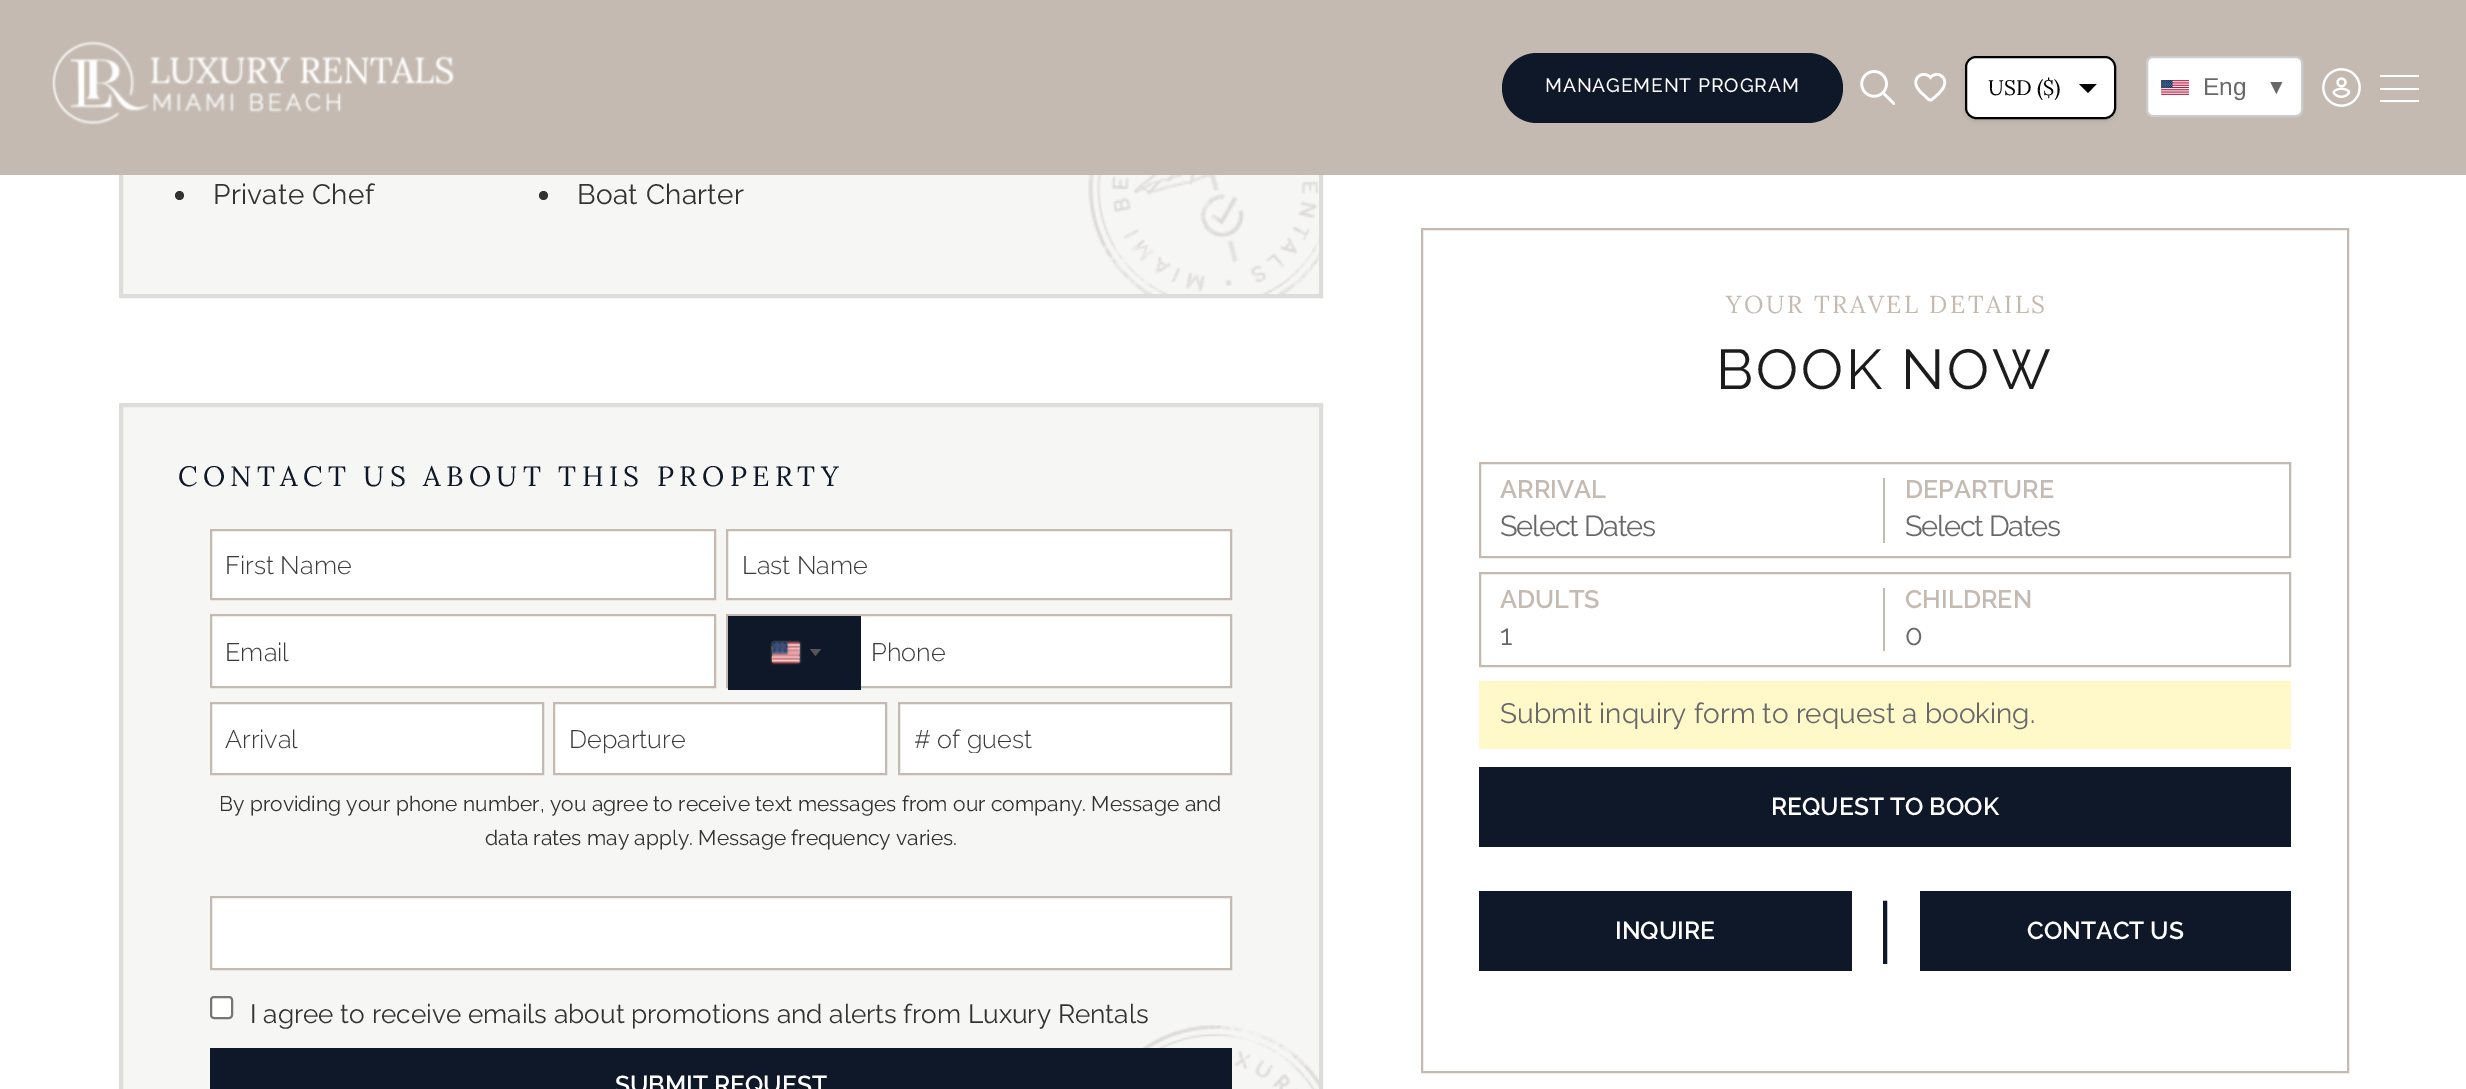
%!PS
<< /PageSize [2466 1089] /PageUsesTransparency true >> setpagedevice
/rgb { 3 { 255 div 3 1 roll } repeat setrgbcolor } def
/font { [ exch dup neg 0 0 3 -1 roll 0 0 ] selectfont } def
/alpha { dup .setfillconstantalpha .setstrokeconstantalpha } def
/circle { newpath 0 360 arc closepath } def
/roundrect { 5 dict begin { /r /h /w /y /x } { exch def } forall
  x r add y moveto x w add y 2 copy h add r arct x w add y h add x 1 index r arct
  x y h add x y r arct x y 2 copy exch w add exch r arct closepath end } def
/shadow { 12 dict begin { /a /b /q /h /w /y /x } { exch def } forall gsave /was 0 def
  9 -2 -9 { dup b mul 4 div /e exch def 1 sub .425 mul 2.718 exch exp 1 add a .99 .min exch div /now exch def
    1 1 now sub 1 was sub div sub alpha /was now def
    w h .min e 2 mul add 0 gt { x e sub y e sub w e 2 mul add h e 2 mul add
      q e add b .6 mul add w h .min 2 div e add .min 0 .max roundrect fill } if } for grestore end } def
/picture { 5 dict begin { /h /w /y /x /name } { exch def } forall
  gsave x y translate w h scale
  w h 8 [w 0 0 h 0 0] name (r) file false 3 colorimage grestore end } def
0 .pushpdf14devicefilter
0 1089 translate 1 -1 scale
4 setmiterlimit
255 255 255 rgb
0 0 2466 1089 rectfill
246 246 245 rgb
123 175 1196 119 rectfill
(img/5.rgb) 1088 175 231 119 picture
221 221 220 rgb
4 setlinewidth
121 -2 1200 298 rectstroke
196 186 177 rgb
0 0 2466 175 rectfill
(img/1.rgb) 51 41 403 84 picture
15 24 40 rgb
1502 53 341 70 35 roundrect fill
(img/2.rgb) 1860 70 35 35 picture
255 255 255 rgb
2.6 setlinewidth
1932 99.5 moveto 1929.5 101.5 1927 98 1925.5 96.5 curveto 1922 93.5 1918 90.5 1916.5 86 curveto 1912.5 77 1924 70 1930.5 77.5 curveto 1936.5 70 1948 77 1944 86 curveto 1942 91.5 1936.5 95.5 1932 99.5 curveto closepath stroke
0 0 0 rgb
1965 58 151 63 11 2 0.1 shadow
255 255 255 rgb
1965 56 151 63 11 roundrect fill
0 0 0 rgb
2079 84 moveto 2088 93 lineto 2096.5 84 lineto closepath fill
2 setlinewidth
1966 57 149 61 10 roundrect stroke
255 255 255 rgb
2147 57 155 59 6 roundrect gsave fill grestore
204 204 204 rgb
stroke
(img/3.rgb) 2161 80 28 15 picture
(img/4.rgb) 2322 68 39 39 picture
[
  [2380 88 39 2 255 255 255]
  [2380 75 39 2 255 255 255]
  [2380 100 39 2 255 255 255]
] { aload pop rgb rectfill } forall
51 51 51 rgb
179.5 195.5 4.5 circle fill
543.5 195.5 4.5 circle fill
246 246 245 rgb
123 407 1196 682 rectfill
(img/6.rgb) 1141 1025 178 64 picture
221 221 220 rgb
4 setlinewidth
121 405 1200 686 rectstroke
255 255 255 rgb
211 530 moveto 715 530 lineto 715 599 lineto 211 599 lineto closepath gsave fill grestore
196 186 177 rgb
2 setlinewidth
stroke
255 255 255 rgb
727 530 moveto 1231 530 lineto 1231 599 lineto 727 599 lineto closepath gsave fill grestore
196 186 177 rgb
stroke
255 255 255 rgb
211 615 moveto 715 615 lineto 715 687 lineto 211 687 lineto closepath gsave fill grestore
196 186 177 rgb
stroke
255 255 255 rgb
861 616 369 70 rectfill
196 186 177 rgb
727 615 504 72 rectstroke
15 24 40 rgb
728 616 133 74 rectfill
136 136 136 rgb
772 642 28 21 2 1 1 shadow
(img/7.rgb) 771 642 29 22 picture
85 85 85 rgb
810 649 moveto 821 649 lineto 815.5 656 lineto closepath fill
255 255 255 rgb
211 703 moveto 543 703 lineto 543 774 lineto 211 774 lineto closepath gsave fill grestore
196 186 177 rgb
stroke
255 255 255 rgb
554 703 moveto 886 703 lineto 886 774 lineto 554 774 lineto closepath gsave fill grestore
196 186 177 rgb
stroke
255 255 255 rgb
899 703 moveto 1231 703 lineto 1231 774 lineto 899 774 lineto closepath gsave fill grestore
196 186 177 rgb
stroke
255 255 255 rgb
211 897 moveto 1231 897 lineto 1231 969 lineto 211 969 lineto closepath gsave fill grestore
196 186 177 rgb
stroke
255 255 255 rgb
211 997 21 21 3 roundrect gsave fill grestore
118 118 118 rgb
stroke
15 24 40 rgb
210 1048 1022 41 rectfill
196 186 177 rgb
1422 229 926 843 rectstroke
1480 463 810 94 rectstroke
1883 478 2 65 rectfill
1480 573 810 93 rectstroke
[
  [1883 588 2 63 196 186 177]
  [1479 681 812 68 255 249 201]
  [1479 767 812 80 15 24 40]
  [1479 891 373 80 15 24 40]
  [1920 891 371 80 15 24 40]
] { aload pop rgb rectfill } forall
/Raleway-Medium 19.25 font
255 255 255 rgb
1545 92 moveto 0.9 0 (MANAGEMENT PROGRAM) ashow
gsave
1988 75 77 25 rectclip
/Lora-Regular 21 font
0 0 0 rgb
1988 95 moveto (USD \($\)) show
grestore
/LiberationSans-Regular 24.5 font
104 104 107 rgb
2203 95 moveto (Eng) show
/LiberationSans-Regular 21 font
2266 94 moveto (▼) show
/Raleway-Regular 28 font
51 51 51 rgb
213 204 moveto 0.3 0 (Private Chef) ashow
577 204 moveto 0.3 0 (Boat Charter) ashow
/Lora-Regular 28 font
15 24 40 rgb
178 486 moveto 5.25 0 (CONTACT US ABOUT THIS PROPERTY) ashow
/Raleway-Light 25.25 font
59 59 59 rgb
[
  [(First Name) 225 574]
  [(Last Name) 742 574]
  [(Email) 225 661]
  [(Phone) 871 661]
  [(Arrival) 225 748]
  [(Departure) 569 748]
] { aload pop moveto show } forall
gsave
914 723 276 30 rectclip
914 748 moveto (# of guest) show
grestore
/Raleway-Regular 21 font
51 51 51 rgb
219 811 moveto (By providing your phone number, you agree to receive text messages from our company. Message and) show
485 845 moveto (data rates may apply. Message frequency varies.) show
/Raleway-Regular 26.25 font
250 1023 moveto (I agree to receive emails about promotions and alerts from Luxury Rentals) show
/Raleway-SemiBold 24.5 font
255 255 255 rgb
615 1093 moveto (SUBMIT REQUEST) show
/Lora-Regular 24.5 font
196 186 177 rgb
1726 313 moveto 2.5 0 (YOUR TRAVEL DETAILS) ashow
/Raleway-Regular 56 font
28 28 28 rgb
1716 389 moveto 2.75 0 (BOOK NOW) ashow
/Raleway-SemiBold 25.25 font
196 186 177 rgb
1500 498 moveto (ARRIVAL) show
/Raleway-Regular 29 font
104 104 107 rgb
1500 536 moveto -1.25 0 (Select Dates) ashow
/Raleway-SemiBold 25.25 font
196 186 177 rgb
1905 498 moveto (DEPARTURE) show
/Raleway-Regular 29 font
104 104 107 rgb
1905 536 moveto -1.25 0 (Select Dates) ashow
/Raleway-SemiBold 25.25 font
196 186 177 rgb
1500 608 moveto (ADULTS) show
/Raleway-Regular 29 font
104 104 107 rgb
1500 645 moveto -1.25 0 (1) ashow
/Raleway-SemiBold 25.25 font
196 186 177 rgb
1905 608 moveto (CHILDREN) show
/Raleway-Regular 29 font
104 104 107 rgb
1905 645 moveto -1.25 0 (0) ashow
/Raleway-Regular 28 font
1500 723 moveto (Submit inquiry form to request a booking.) show
/Raleway-SemiBold 24.5 font
255 255 255 rgb
1771 815 moveto (REQUEST TO BOOK) show
1615 939 moveto (INQUIRE) show
/Raleway-Regular 70 font
15 24 40 rgb
1877 955 moveto (|) show
/Raleway-SemiBold 24.5 font
255 255 255 rgb
2027 939 moveto (CONTACT US) show
.poppdf14devicefilter showpage
